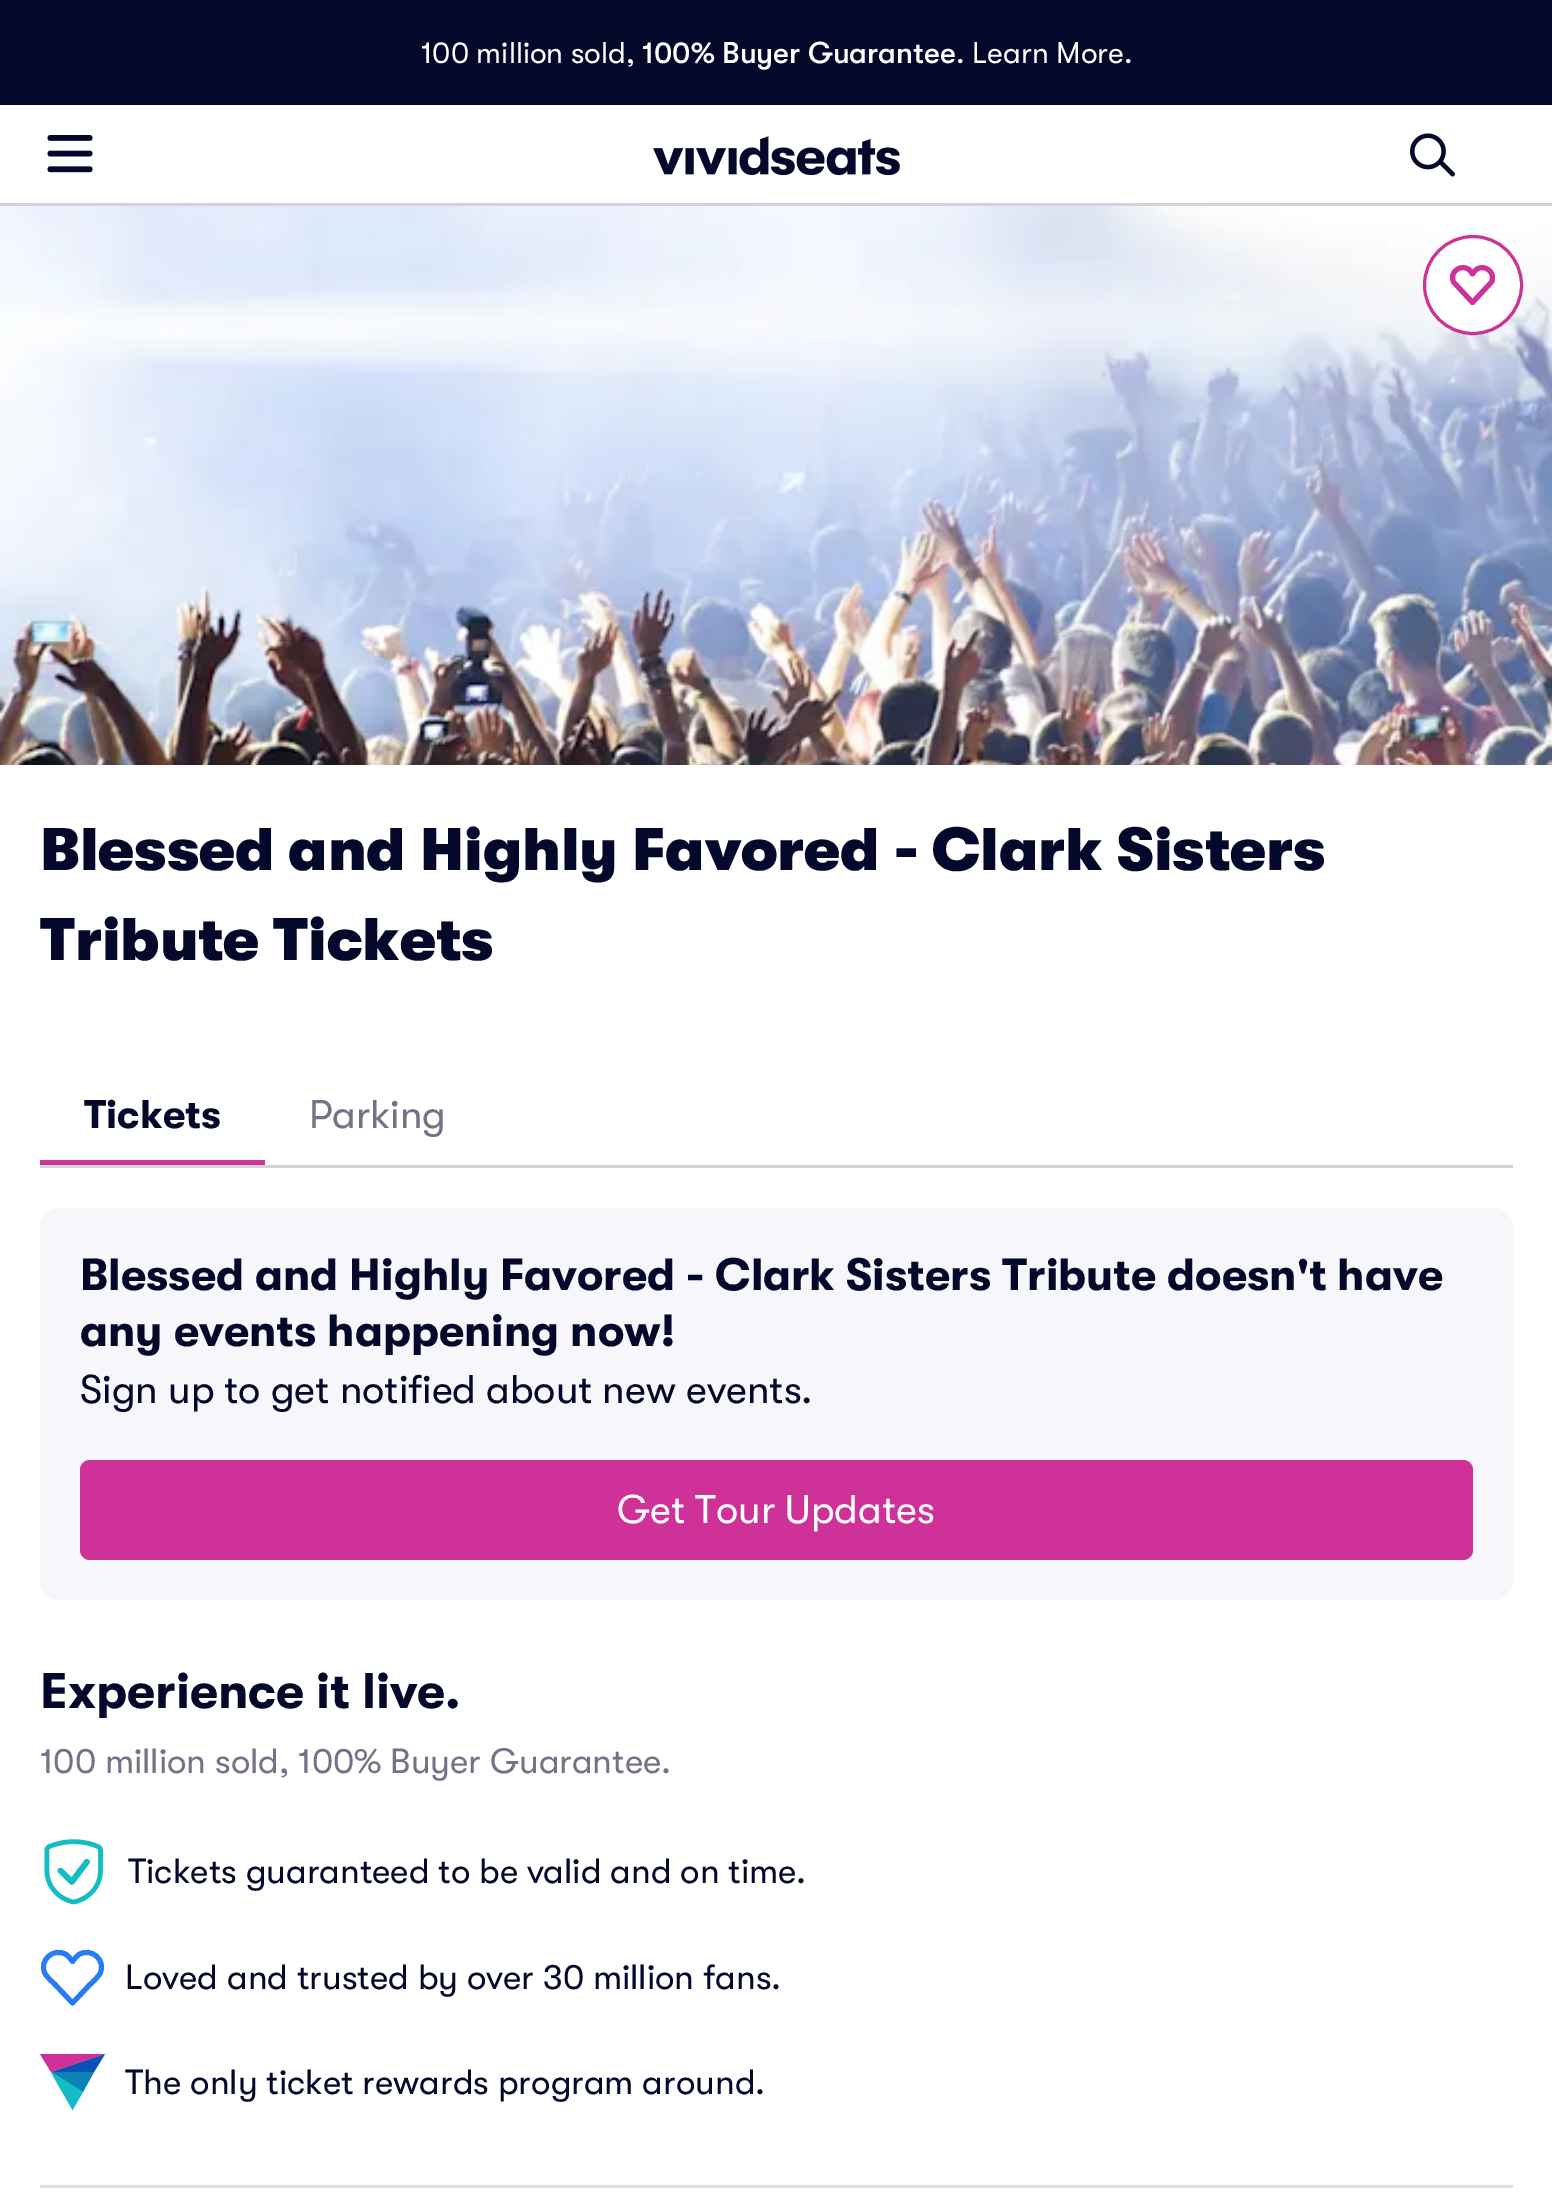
%!PS
<< /PageSize [1552 2202] >> setpagedevice
/rgb { 3 { 255 div 3 1 roll } repeat setrgbcolor } def
/font { [ exch dup neg 0 0 3 -1 roll 0 0 ] selectfont } def
/circle { newpath 0 360 arc closepath } def
/roundrect { 5 dict begin { /r /h /w /y /x } { exch def } forall
  x r add y moveto x w add y 2 copy h add r arct x w add y h add x 1 index r arct
  x y h add x y r arct x y 2 copy exch w add exch r arct closepath end } def
/picture { 5 dict begin { /h /w /y /x /name } { exch def } forall
  gsave x y translate w h scale
  w h 8 [w 0 0 h 0 0] name (r) file false 3 colorimage grestore end } def
0 2202 translate 1 -1 scale
4 setmiterlimit
255 255 255 rgb
0 0 1552 2202 rectfill
4 9 44 rgb
0 0 1552 105 rectfill
211 211 220 rgb
0 203 1552 3 rectfill
(img/1.rgb) 47 135 46 38 picture
(img/2.rgb) 653 136 247 40 picture
(img/3.rgb) 1410 133 45 44 picture
(img/4.rgb) 0 206 1552 559 picture
255 255 255 rgb
1473 285 48.5 circle gsave fill grestore
206 49 151 rgb
3 setlinewidth
stroke
5 setlinewidth
1 setlinecap
1 setlinejoin
1472.5 302.5 moveto 1453.5 282 lineto 1449 273 1459.5 264 1468 269 curveto 1470 270 1471 272 1472.5 274 curveto 1474 272 1475 270 1477 269 curveto 1485.5 264 1496 273 1491.5 282 curveto closepath stroke
211 211 220 rgb
40 1165 1473 3 rectfill
206 49 151 rgb
40 1160 225 5 rectfill
246 246 251 rgb
40 1208 1473 392 20 roundrect fill
206 49 151 rgb
80 1460 1393 100 10 roundrect fill
224 224 224 rgb
40 2185 1473 3 rectfill
(img/5.rgb) 44 1839 59 66 picture
39 124 244 rgb
72.5 2003 moveto 56 1985.5 lineto 52.5 1982 47.5 1978 45 1973.5 curveto 38.5 1960.5 53.5 1947 66 1954.5 curveto 68.5 1956 70.5 1959 72.5 1961.5 curveto 74.5 1959 76.5 1956 79 1954.5 curveto 91.5 1947 106.5 1960.5 100 1973.5 curveto 97.5 1978 92.5 1982 89 1985.5 curveto closepath stroke
9 81 182 rgb
105 2054 moveto 51 2072 lineto 94 2072 lineto closepath fill
206 49 151 rgb
105 2054 moveto 51 2072 lineto 40 2054 lineto closepath fill
9 131 182 rgb
83 2092 moveto 51 2072 lineto 94 2072 lineto closepath fill
19 189 195 rgb
51 2072.5 moveto 83 2092 lineto 72.5 2110 lineto closepath fill
/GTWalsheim-Regular 30 font
255 255 255 rgb
421 63 moveto (100 million sold,) show
/GTWalsheim-Medium 30 font
642 63 moveto (100% Buyer Guarantee) show
/GTWalsheim-Regular 30 font
956 63 moveto (. Learn More.) show
/GTWalsheim-ExtraBold 60 font
4 9 44 rgb
40 870 moveto (Blessed and Highly Favored - Clark Sisters) show
40 960 moveto (Tribute Tickets) show
/GTWalsheim-Bold 40 font
84 1128 moveto (Tickets) show
/GTWalsheim-Regular 40 font
113 116 136 rgb
309 1128 moveto (Parking) show
/GTWalsheim-Bold 45 font
4 9 44 rgb
80 1290 moveto (Blessed and Highly Favored - Clark Sisters Tribute doesn't have) show
80 1346 moveto (any events happening now!) show
/GTWalsheim-Regular 40 font
80 1403 moveto (Sign up to get notified about new events.) show
255 255 255 rgb
617 1523 moveto (Get Tour Updates) show
/GTWalsheim-Bold 50 font
4 9 44 rgb
40 1708 moveto (Experience it live.) show
/GTWalsheim-Regular 35 font
113 116 136 rgb
40 1773 moveto (100 million sold, 100% Buyer Guarantee.) show
4 9 44 rgb
[
  [(Tickets guaranteed to be valid and on time.) 128 1883]
  [(Loved and trusted by over 30 million fans.) 125 1989]
  [(The only ticket rewards program around.) 125 2094]
] { aload pop moveto show } forall
showpage
